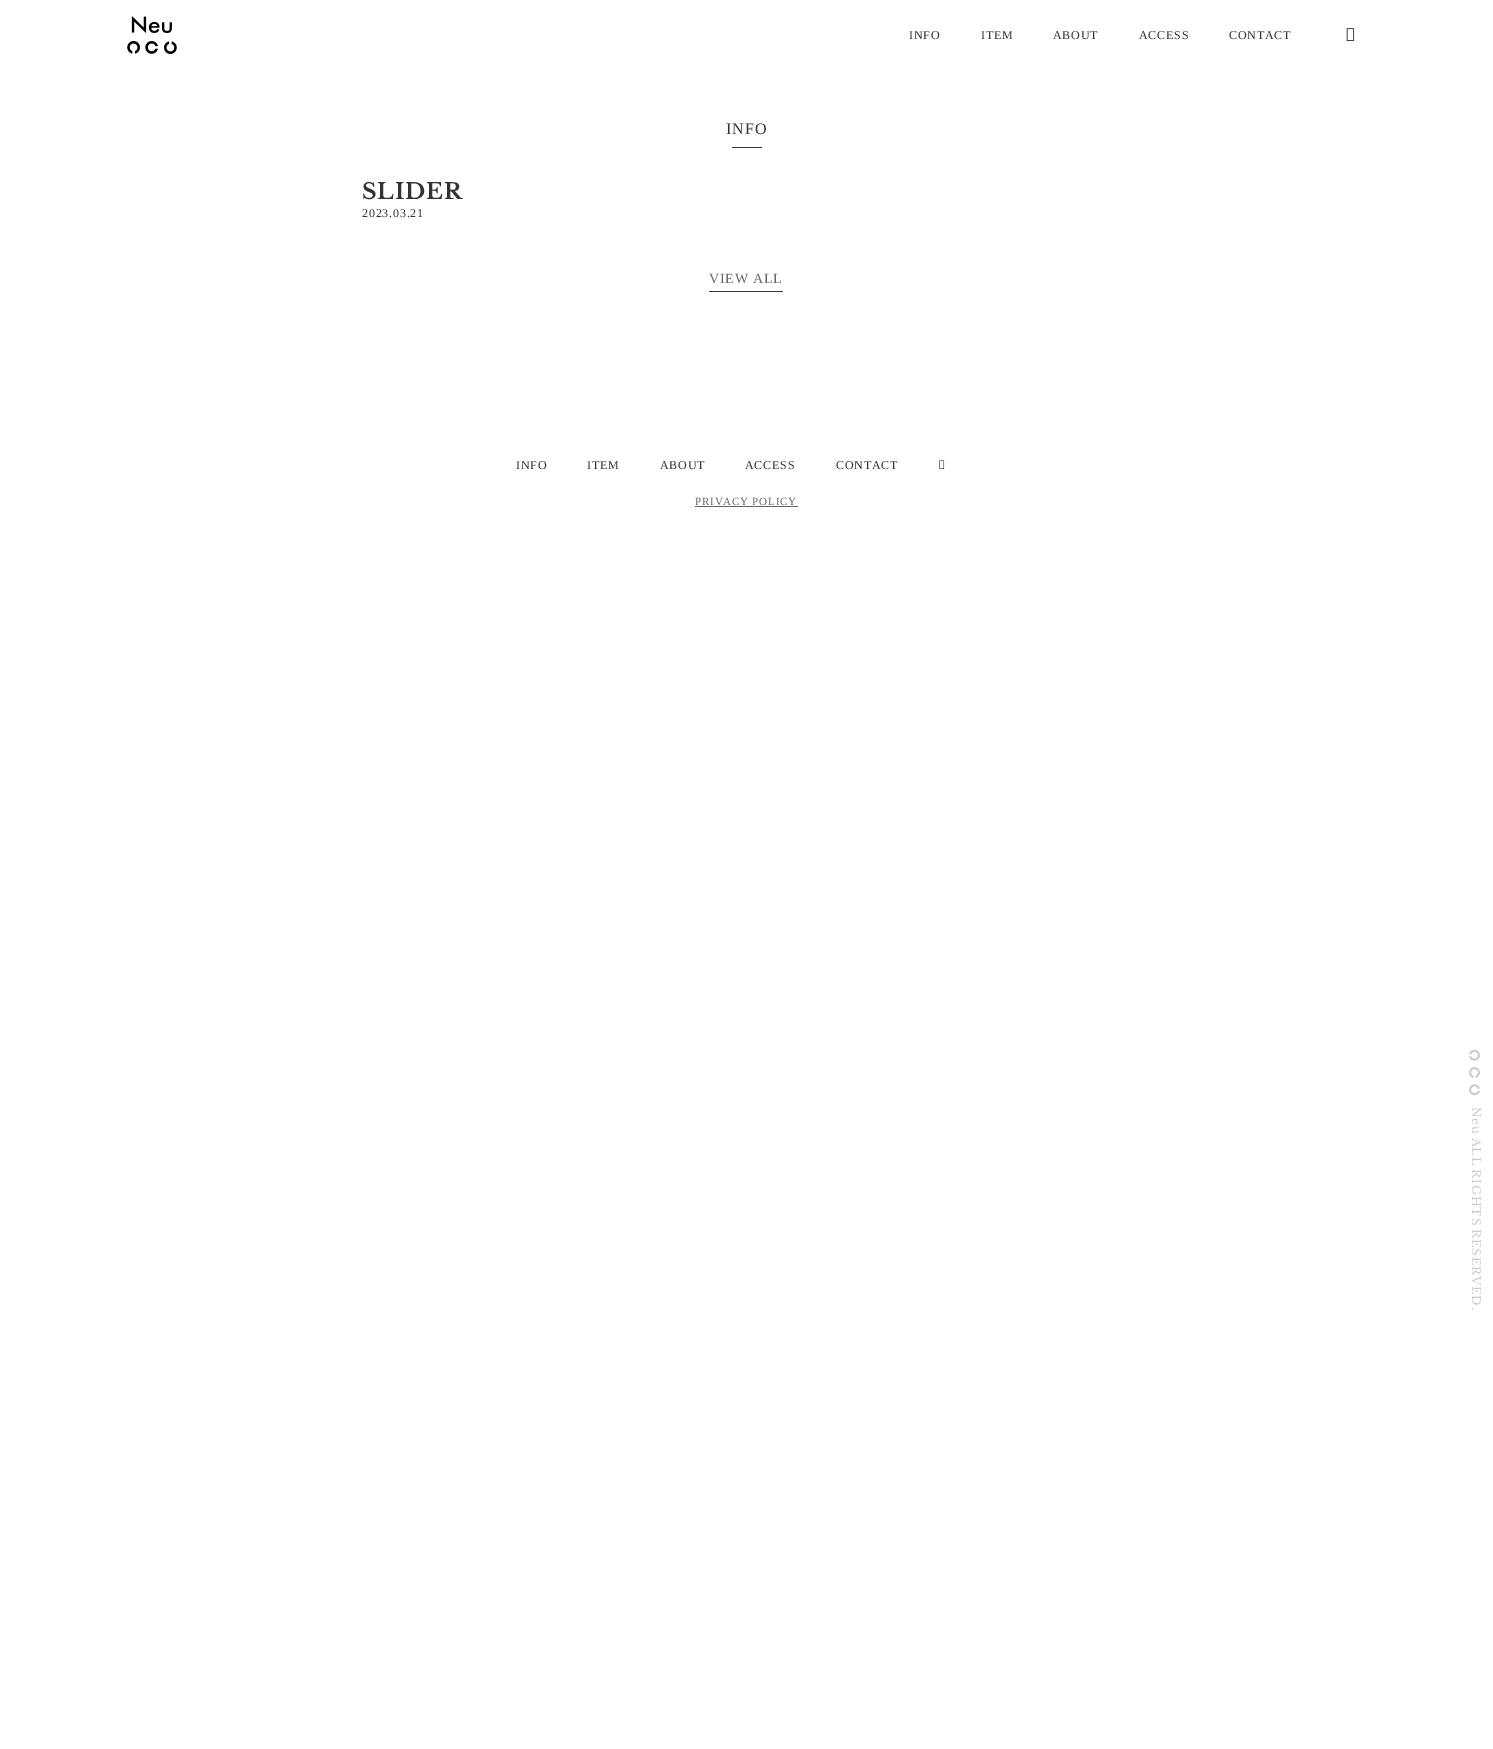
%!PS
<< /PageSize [1493 1749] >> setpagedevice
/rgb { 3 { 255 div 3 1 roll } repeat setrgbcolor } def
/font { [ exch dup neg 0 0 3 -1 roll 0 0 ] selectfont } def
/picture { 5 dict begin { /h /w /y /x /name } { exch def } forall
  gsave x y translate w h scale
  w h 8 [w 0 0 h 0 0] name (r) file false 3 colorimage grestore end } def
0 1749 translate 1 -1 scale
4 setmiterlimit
255 255 255 rgb
0 0 1493 1749 rectfill
(img/1.rgb) 127 16 50 38 picture
(img/2.rgb) 1346 28 9 13 picture
51 51 51 rgb
732 147 30 1 rectfill
57 57 57 rgb
709 291 74 1 rectfill
(img/3.rgb) 939 460 6 9 picture
102 102 102 rgb
695 506 103 1 rectfill
(img/4.rgb) 1469 1049 11 47 picture
/LiberationSerif-Regular 12 font
51 51 51 rgb
909 39 moveto 0.8 0 (INFO) ashow
981 39 moveto 0.8 0 (ITEM) ashow
1053 39 moveto 0.8 0 (ABOUT) ashow
1139 39 moveto 0.8 0 (ACCESS) ashow
1229 39 moveto 0.8 0 (CONTACT) ashow
/LiberationSerif-Regular 16 font
726 134 moveto 1 0 (INFO) ashow
/LibreBaskerville-Bold 22 font
362 199 moveto 0.8 0 (SLIDER) ashow
/LiberationSerif-Regular 12 font
362 217 moveto 0.8 0 (2023.03.21) ashow
/LiberationSerif-Regular 14 font
102 102 102 rgb
709 283 moveto 0.8 0 (VIEW ALL) ashow
/LiberationSerif-Regular 12 font
51 51 51 rgb
516 469 moveto 0.8 0 (INFO) ashow
587 469 moveto 0.8 0 (ITEM) ashow
660 469 moveto 0.8 0 (ABOUT) ashow
745 469 moveto 0.8 0 (ACCESS) ashow
836 469 moveto 0.8 0 (CONTACT) ashow
/LiberationSerif-Regular 11 font
102 102 102 rgb
695 505 moveto 0.8 0 (PRIVACY POLICY) ashow
/LibreBaskerville-Regular 11.7 font
204 204 204 rgb
gsave 1472 1107 translate 90 rotate 0 0 moveto -1 0 32 0.8 0 (Neu ALL RIGHTS RESERVED.) awidthshow grestore
showpage
